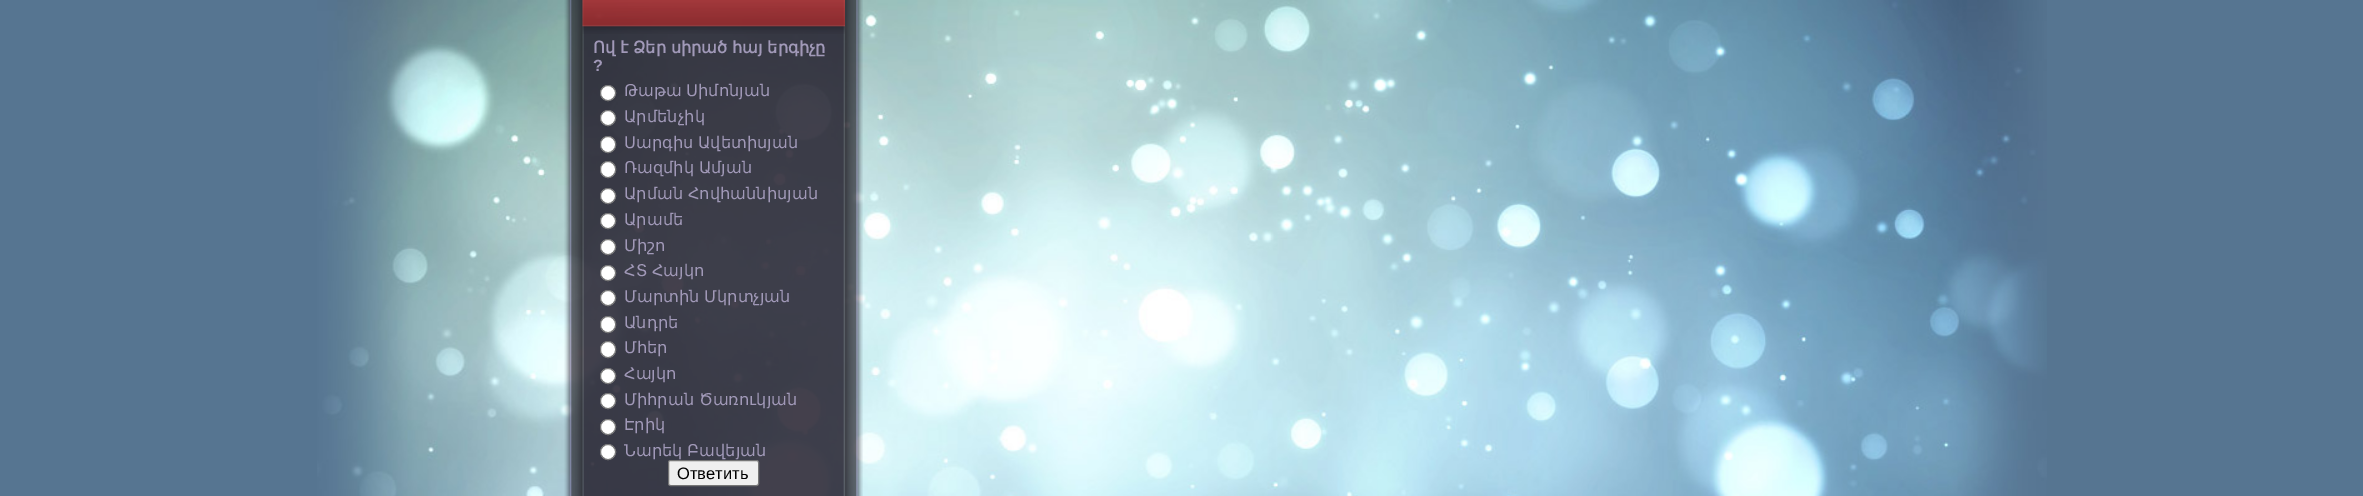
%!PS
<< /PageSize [2363 496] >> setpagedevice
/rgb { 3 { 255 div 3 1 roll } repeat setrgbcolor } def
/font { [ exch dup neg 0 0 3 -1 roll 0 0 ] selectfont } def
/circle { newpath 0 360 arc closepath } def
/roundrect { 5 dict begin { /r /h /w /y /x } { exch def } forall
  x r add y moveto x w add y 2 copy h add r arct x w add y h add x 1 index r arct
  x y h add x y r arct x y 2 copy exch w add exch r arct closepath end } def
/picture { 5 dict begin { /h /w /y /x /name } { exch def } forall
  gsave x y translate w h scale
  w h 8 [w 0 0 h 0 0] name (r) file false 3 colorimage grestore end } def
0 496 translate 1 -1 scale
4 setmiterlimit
86 117 145 rgb
0 0 2363 496 rectfill
(img/1.rgb) 317 0 1730 496 picture
(img/2.rgb) 564 0 299 496 picture
(img/3.rgb) 582 0 263 34 picture
255 255 255 rgb
608 93 7.5 circle gsave fill grestore
118 118 118 rgb
stroke
255 255 255 rgb
608 118 7.5 circle gsave fill grestore
118 118 118 rgb
stroke
255 255 255 rgb
600.5 136.5 15 16 7.5 roundrect gsave fill grestore
118 118 118 rgb
stroke
255 255 255 rgb
600.5 161.5 15 16 7.5 roundrect gsave fill grestore
118 118 118 rgb
stroke
255 255 255 rgb
608 196 7.5 circle gsave fill grestore
118 118 118 rgb
stroke
255 255 255 rgb
608 221 7.5 circle gsave fill grestore
118 118 118 rgb
stroke
255 255 255 rgb
608 247 7.5 circle gsave fill grestore
118 118 118 rgb
stroke
255 255 255 rgb
608 273 7.5 circle gsave fill grestore
118 118 118 rgb
stroke
255 255 255 rgb
608 298 7.5 circle gsave fill grestore
118 118 118 rgb
stroke
255 255 255 rgb
600.5 316.5 15 16 7.5 roundrect gsave fill grestore
118 118 118 rgb
stroke
255 255 255 rgb
600.5 341.5 15 16 7.5 roundrect gsave fill grestore
118 118 118 rgb
stroke
255 255 255 rgb
608 376 7.5 circle gsave fill grestore
118 118 118 rgb
stroke
255 255 255 rgb
608 401 7.5 circle gsave fill grestore
118 118 118 rgb
stroke
255 255 255 rgb
608 427 7.5 circle gsave fill grestore
118 118 118 rgb
stroke
255 255 255 rgb
608 452 7.5 circle gsave fill grestore
118 118 118 rgb
stroke
239 239 239 rgb
668.5 460.5 90 25 2 roundrect gsave fill grestore
118 118 118 rgb
stroke
/DejaVuSans-Bold 16.25 font
161 153 184 rgb
593 53 moveto -0.5 0 32 (Ով է Ձեր սիրած հայ երգիչը) widthshow
/LiberationSans-Bold 16.25 font
593 71 moveto (?) show
/DejaVuSans-Regular 16.25 font
624 96 moveto -0.5 0 32 (Թաթա Սիմոնյան) widthshow
624 122 moveto (Արմենչիկ) show
624 148 moveto -0.5 0 32 (Սարգիս Ավետիսյան) widthshow
624 173 moveto -0.5 0 32 (Ռազմիկ Ամյան) widthshow
624 199 moveto -0.5 0 32 (Արման Հովհաննիսյան) widthshow
624 225 moveto (Արամե) show
624 251 moveto (Միշո) show
624 276 moveto -0.5 0 32 (ՀՏ Հայկո) widthshow
624 302 moveto -0.5 0 32 (Մարտին Մկրտչյան) widthshow
[
  [(Անդրե) 624 328]
  [(Մհեր) 624 353]
  [(Հայկո) 624 379]
] { aload pop moveto show } forall
624 405 moveto -0.5 0 32 (Միհրան Ծառուկյան) widthshow
624 430 moveto (Էրիկ) show
624 456 moveto -0.5 0 32 (Նարեկ Բավեյան) widthshow
/LiberationSans-Regular 16.5 font
0 0 0 rgb
677 479 moveto (Ответить) show
showpage
